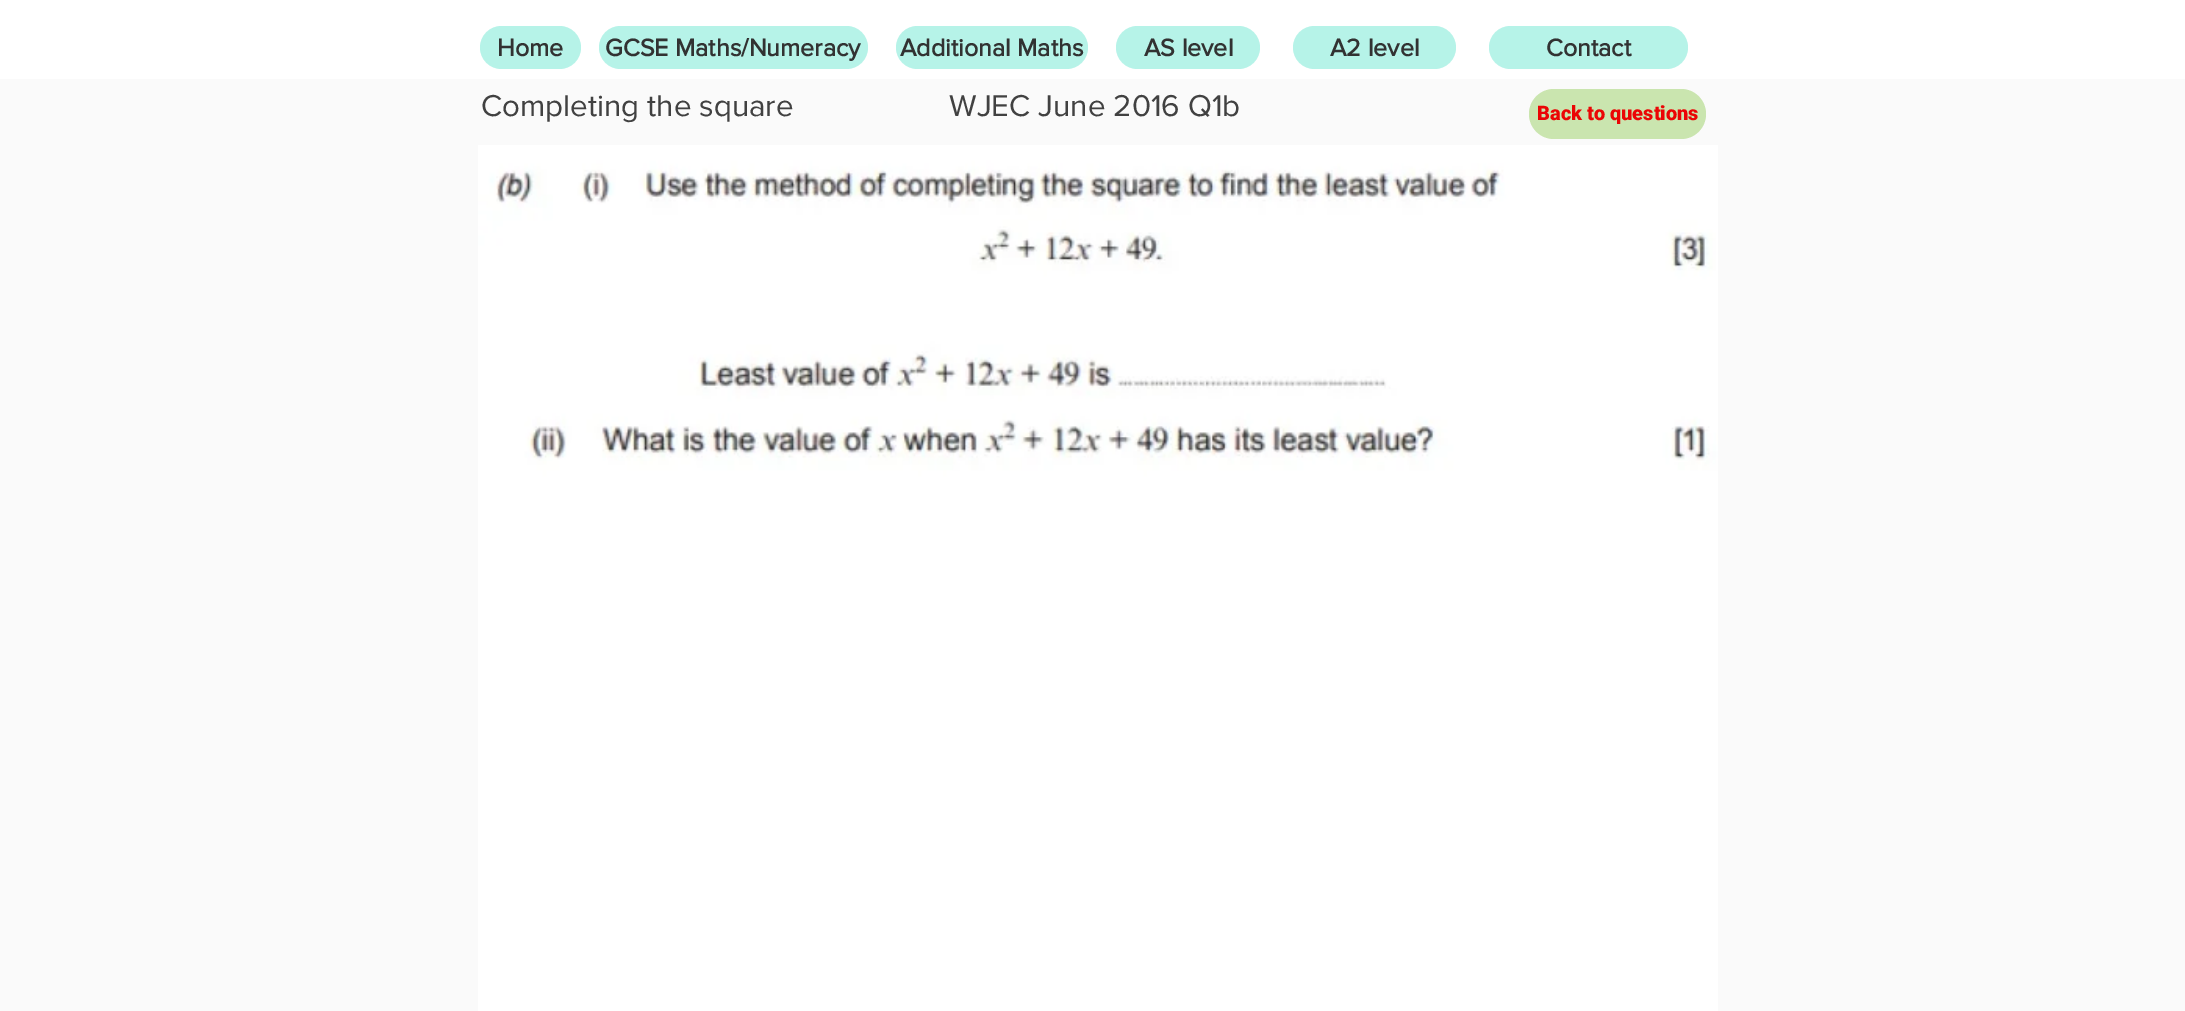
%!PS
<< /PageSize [2185 1011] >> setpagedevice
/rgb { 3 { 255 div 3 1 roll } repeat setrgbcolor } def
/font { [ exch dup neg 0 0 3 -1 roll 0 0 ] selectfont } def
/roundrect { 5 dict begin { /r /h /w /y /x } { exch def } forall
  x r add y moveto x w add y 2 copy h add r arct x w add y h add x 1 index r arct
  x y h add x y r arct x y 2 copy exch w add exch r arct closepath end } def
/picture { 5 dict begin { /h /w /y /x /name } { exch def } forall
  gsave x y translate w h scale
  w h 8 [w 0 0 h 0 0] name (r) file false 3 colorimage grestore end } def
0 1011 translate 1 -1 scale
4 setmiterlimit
255 255 255 rgb
0 0 2185 1011 rectfill
182 243 232 rgb
480 26 101 43 21.5 roundrect fill
599 26 269 43 21.5 roundrect fill
896 26 192 43 21.5 roundrect fill
1116 26 144 43 21.5 roundrect fill
1293 26 163 43 21.5 roundrect fill
1489 26 199 43 21.5 roundrect fill
250 250 250 rgb
0 79 2185 932 rectfill
202 229 175 rgb
1529 89 177 50 25 roundrect fill
(img/1.rgb) 478 145 1240 866 picture
/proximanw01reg-Bold 25 font
50 50 50 rgb
[
  [(Home) 497 56]
  [(GCSE Maths/Numeracy) 605 56]
  [(Additional Maths) 900 56]
  [(AS level) 1144 56]
  [(A2 level) 1330 56]
  [(Contact) 1546 56]
] { aload pop moveto show } forall
/proximanw01reg-Regular 31.25 font
65 65 65 rgb
481 116 moveto (Completing the square) show
949 116 moveto (WJEC June 2016 Q1b) show
/Roboto-Black 20 font
235 5 5 rgb
1537 120 moveto (Back to questions) show
showpage
